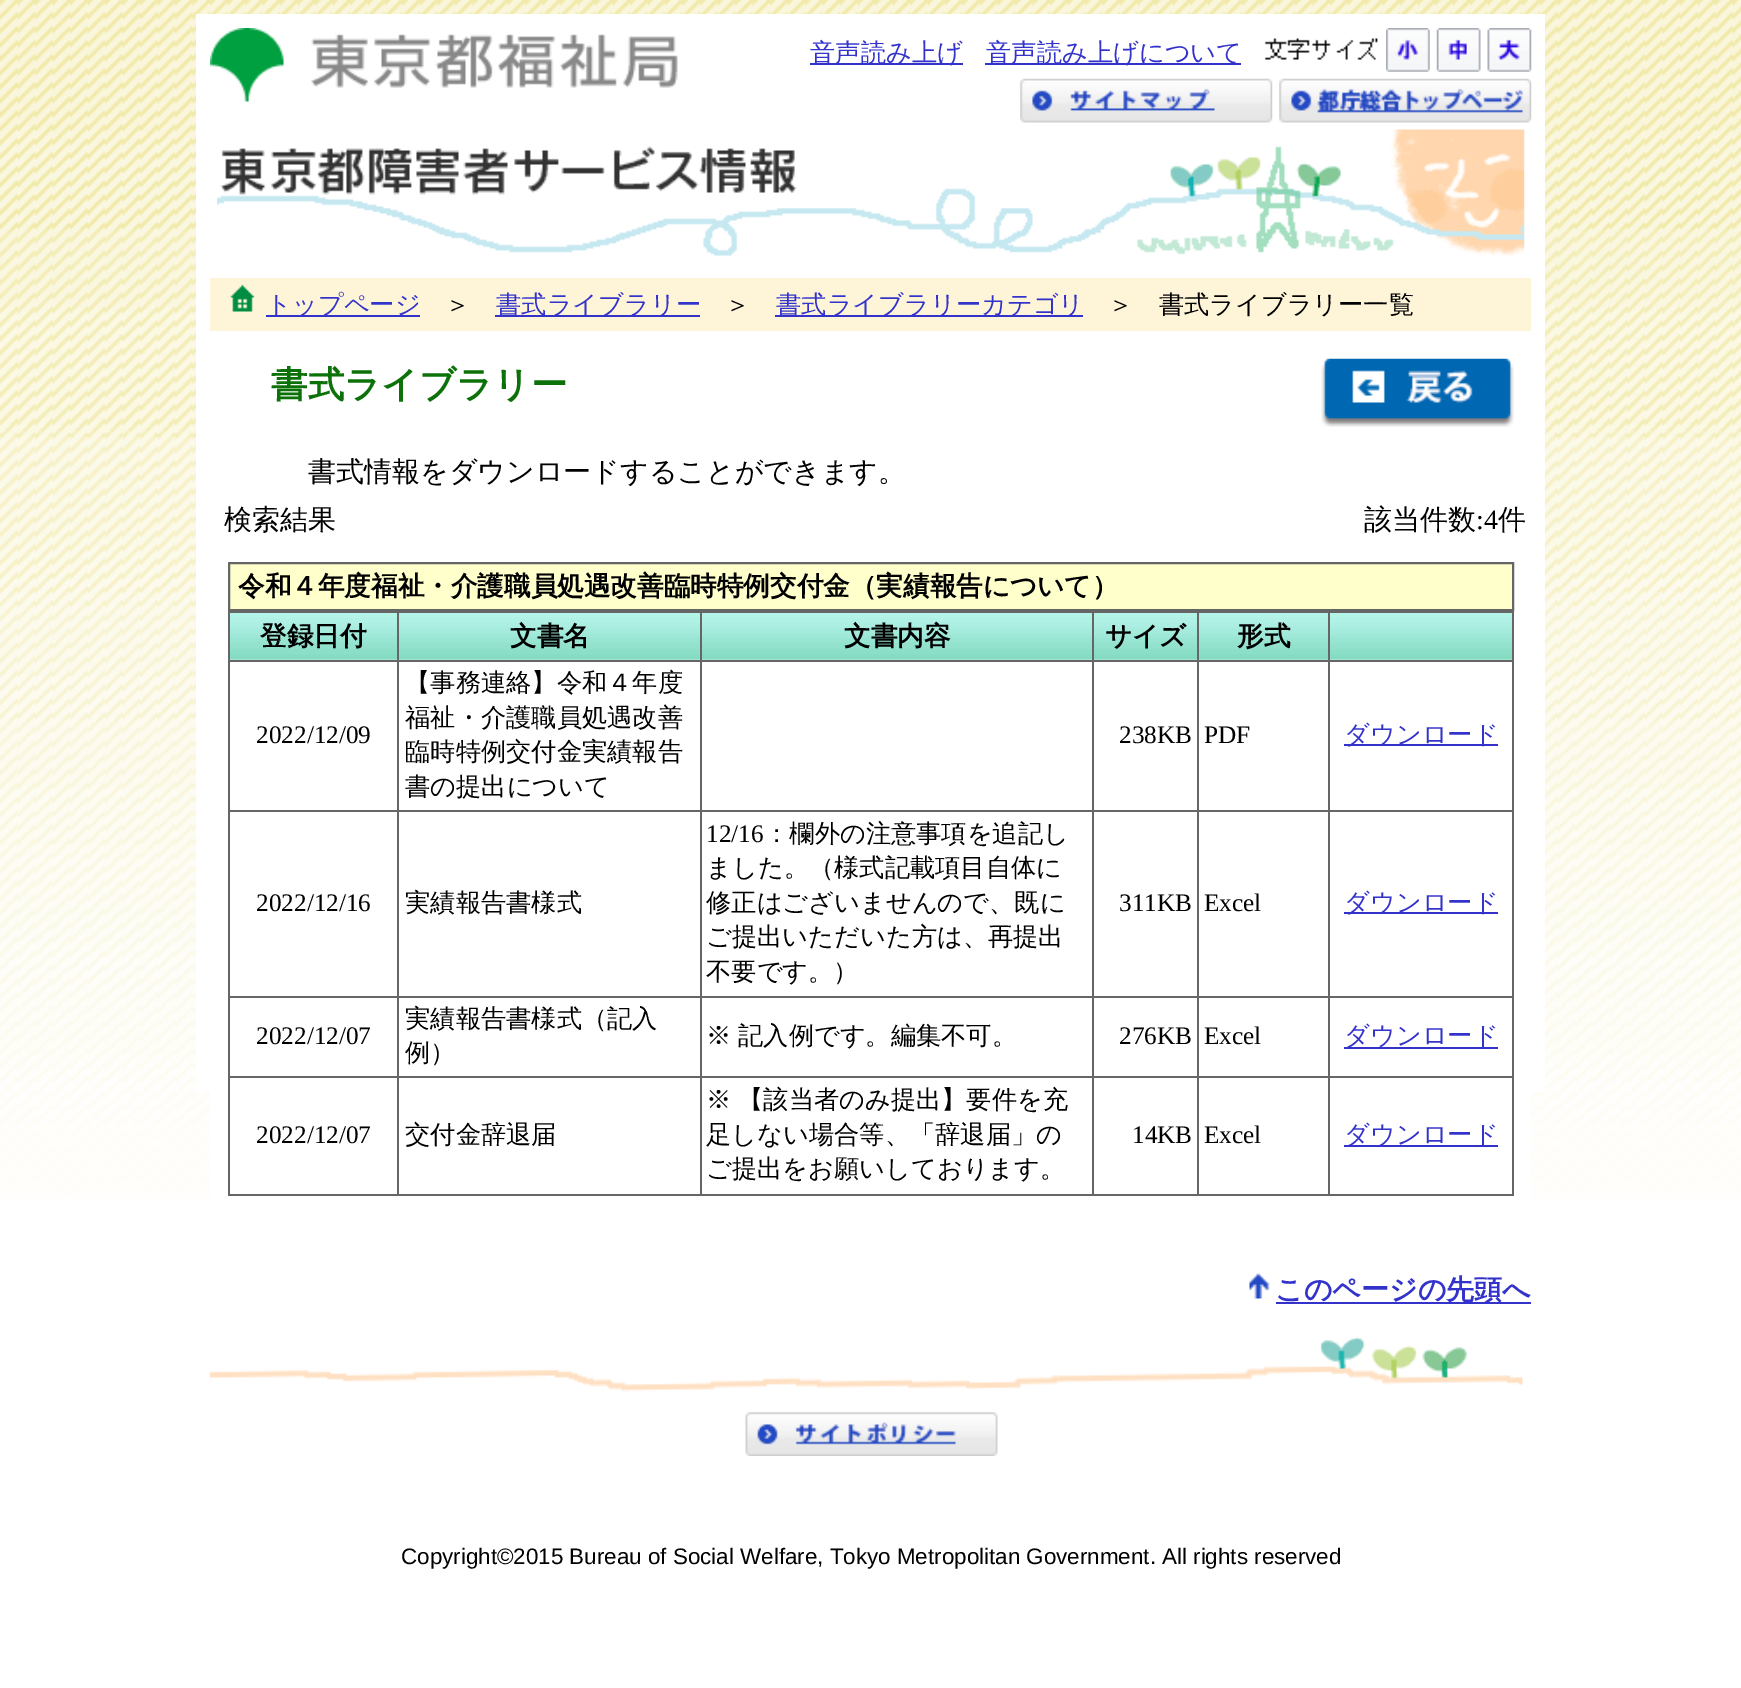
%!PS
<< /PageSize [1741 1688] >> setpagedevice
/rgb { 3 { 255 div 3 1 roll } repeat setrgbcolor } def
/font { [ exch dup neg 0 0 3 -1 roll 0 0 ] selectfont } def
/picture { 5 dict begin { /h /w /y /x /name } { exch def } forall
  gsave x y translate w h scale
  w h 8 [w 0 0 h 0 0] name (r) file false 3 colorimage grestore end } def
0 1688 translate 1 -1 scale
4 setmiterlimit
255 255 255 rgb
0 0 1741 1688 rectfill
(img/1.rgb) 0 0 1741 1199 picture
196 14 1349 1078 rectfill
(img/2.rgb) 210 28 468 74 picture
51 51 204 rgb
810 63 153 2 rectfill
985 63 256 2 rectfill
(img/3.rgb) 1264 38 114 22 picture
(img/4.rgb) 1386 28 44 44 picture
(img/5.rgb) 1436 28 45 44 picture
(img/6.rgb) 1487 28 45 44 picture
(img/7.rgb) 1020 78 253 45 picture
(img/8.rgb) 1279 78 253 45 picture
(img/9.rgb) 217 129 1308 128 picture
254 245 216 rgb
210 278 1321 53 rectfill
(img/10.rgb) 230 284 25 28 picture
[
  [266 315 154 2 51 51 204]
  [495 315 205 2 51 51 204]
  [775 315 308 2 51 51 204]
  [210 1092 1321 107 255 255 255]
] { aload pop rgb rectfill } forall
(img/11.rgb) 1321 358 193 69 picture
[
  [1512 611 2 584 102 102 102]
  [228 1194 1286 2 102 102 102]
  [228 611 2 584 102 102 102]
] { aload pop rgb rectfill } forall
255 255 204 rgb
229 563 moveto 1513 563 lineto 1513 610 lineto 229 610 lineto closepath gsave fill grestore
102 102 102 rgb
2 setlinewidth
stroke
(img/12.rgb) 230 613 167 47 picture
[
  [1328 611 186 2 102 102 102]
  [1328 660 186 2 102 102 102]
  [1328 810 186 2 102 102 102]
  [1328 996 186 2 102 102 102]
  [1328 1076 186 2 102 102 102]
  [1328 1076 2 119 102 102 102]
  [1197 1076 133 2 102 102 102]
  [1328 996 2 82 102 102 102]
  [1197 996 133 2 102 102 102]
  [1328 810 2 188 102 102 102]
  [1197 810 133 2 102 102 102]
  [1328 660 2 152 102 102 102]
  [1197 660 133 2 102 102 102]
  [1328 611 2 51 102 102 102]
  [1197 611 133 2 102 102 102]
  [1197 1076 2 119 102 102 102]
  [1092 1076 107 2 102 102 102]
  [1197 996 2 82 102 102 102]
  [1092 996 107 2 102 102 102]
  [1197 810 2 188 102 102 102]
  [1092 810 107 2 102 102 102]
  [1197 660 2 152 102 102 102]
  [1092 660 107 2 102 102 102]
  [1197 611 2 51 102 102 102]
  [1092 611 107 2 102 102 102]
  [1092 1076 2 119 102 102 102]
  [700 1076 394 2 102 102 102]
  [1092 996 2 82 102 102 102]
  [700 996 394 2 102 102 102]
  [1092 810 2 188 102 102 102]
  [700 810 394 2 102 102 102]
  [1092 660 2 152 102 102 102]
  [700 660 394 2 102 102 102]
  [1092 611 2 51 102 102 102]
  [700 611 394 2 102 102 102]
  [700 1076 2 119 102 102 102]
  [397 1076 305 2 102 102 102]
  [700 996 2 82 102 102 102]
  [397 996 305 2 102 102 102]
  [700 810 2 188 102 102 102]
  [397 810 305 2 102 102 102]
  [700 660 2 152 102 102 102]
  [397 660 305 2 102 102 102]
  [700 611 2 51 102 102 102]
  [397 611 305 2 102 102 102]
  [397 1076 2 119 102 102 102]
  [228 1076 171 2 102 102 102]
  [397 996 2 82 102 102 102]
  [228 996 171 2 102 102 102]
  [397 810 2 188 102 102 102]
  [228 810 171 2 102 102 102]
  [397 660 2 152 102 102 102]
  [228 660 171 2 102 102 102]
  [397 611 2 51 102 102 102]
  [228 611 171 2 102 102 102]
] { aload pop rgb rectfill } forall
(img/13.rgb) 399 613 301 47 picture
(img/14.rgb) 702 613 390 47 picture
(img/15.rgb) 1094 613 103 47 picture
(img/16.rgb) 1199 613 129 47 picture
(img/17.rgb) 1330 613 182 47 picture
[
  [1344 744 154 2 51 51 204]
  [1344 912 154 2 51 51 204]
  [1344 1047 154 2 51 51 204]
  [1344 1145 154 2 51 51 204]
] { aload pop rgb rectfill } forall
(img/18.rgb) 210 1336 1313 56 picture
(img/19.rgb) 1249 1273 21 26 picture
1276 1302 255 2 rectfill
(img/20.rgb) 745 1412 253 44 picture
/WenQuanYiZenHei-Medium 25.25 font
[
  [(音声読み上げ) 810 61]
  [(音声読み上げについて) 986 61]
  [(トップページ) 266 313]
] { aload pop moveto show } forall
0 0 0 rgb
445 313 moveto (＞) show
51 51 204 rgb
496 313 moveto (書式ライブラリー) show
0 0 0 rgb
725 313 moveto (＞) show
51 51 204 rgb
776 313 moveto (書式ライブラリーカテゴリ) show
0 0 0 rgb
1108 313 moveto (＞　書式ライブラリー一覧) show
/WenQuanYiZenHei-Bold 36.5 font
11 113 8 rgb
271 397 moveto (書式ライブラリー) show
/WenQuanYiZenHei-Medium 28 font
0 0 0 rgb
[
  [(書式情報をダウンロードすることができます。) 308 481]
  [(検索結果) 224 529]
  [(該当件数) 1364 529]
] { aload pop moveto show } forall
/LiberationSerif-Regular 28 font
1476 529 moveto (:4) show
/WenQuanYiZenHei-Medium 28 font
1498 529 moveto (件) show
/WenQuanYiZenHei-Bold 26.6 font
[
  [(令和４年度福祉・介護職員処遇改善臨時特例交付金（実績報告について）) 238 595]
  [(登録日付) 260 645]
  [(文書名) 510 645]
  [(文書内容) 844 645]
  [(サイズ) 1105 645]
  [(形式) 1237 645]
] { aload pop moveto show } forall
/LiberationSerif-Regular 25.25 font
256 743 moveto (2022/12/09) show
/WenQuanYiZenHei-Medium 25.25 font
[
  [(【事務連絡】令和４年度) 405 691]
  [(福祉・介護職員処遇改善) 405 726]
  [(臨時特例交付金実績報告) 405 760]
  [(書の提出について) 405 795]
] { aload pop moveto show } forall
/LiberationSerif-Regular 25.25 font
1119 743 moveto (238KB) show
1204 743 moveto (PDF) show
/WenQuanYiZenHei-Medium 25.25 font
51 51 204 rgb
1344 743 moveto (ダウンロード) show
/LiberationSerif-Regular 25.25 font
0 0 0 rgb
256 911 moveto (2022/12/16) show
/WenQuanYiZenHei-Medium 25.25 font
405 911 moveto (実績報告書様式) show
/LiberationSerif-Regular 25.25 font
706 842 moveto (12/16) show
/WenQuanYiZenHei-Medium 25.25 font
[
  [(：欄外の注意事項を追記し) 764 842]
  [(ました。（様式記載項目自体に) 706 876]
  [(修正はございませんので、既に) 706 911]
  [(ご提出いただいた方は、再提出) 706 945]
  [(不要です。）) 706 980]
] { aload pop moveto show } forall
/LiberationSerif-Regular 25.25 font
1119 911 moveto (311KB) show
1204 911 moveto (Excel) show
/WenQuanYiZenHei-Medium 25.25 font
51 51 204 rgb
1344 911 moveto (ダウンロード) show
/LiberationSerif-Regular 25.25 font
0 0 0 rgb
256 1044 moveto (2022/12/07) show
/WenQuanYiZenHei-Medium 25.25 font
[
  [(実績報告書様式（記入) 405 1027]
  [(例）) 405 1061]
  [(※) 706 1044]
  [(記入例です。編集不可。) 738 1044]
] { aload pop moveto show } forall
/LiberationSerif-Regular 25.25 font
1119 1044 moveto (276KB) show
1204 1044 moveto (Excel) show
/WenQuanYiZenHei-Medium 25.25 font
51 51 204 rgb
1344 1044 moveto (ダウンロード) show
/LiberationSerif-Regular 25.25 font
0 0 0 rgb
256 1143 moveto (2022/12/07) show
/WenQuanYiZenHei-Medium 25.25 font
[
  [(交付金辞退届) 405 1143]
  [(※) 706 1108]
  [(【該当者のみ提出】要件を充) 738 1108]
  [(足しない場合等、「辞退届」の) 706 1143]
  [(ご提出をお願いしております。) 706 1177]
] { aload pop moveto show } forall
/LiberationSerif-Regular 25.25 font
1132 1143 moveto (14KB) show
1204 1143 moveto (Excel) show
/WenQuanYiZenHei-Medium 25.25 font
51 51 204 rgb
1344 1143 moveto (ダウンロード) show
/WenQuanYiZenHei-Bold 28 font
1275 1299 moveto (このページの先頭へ) show
/LiberationSans-Regular 22.4 font
0 0 0 rgb
401 1564 moveto (Copyright©2015 Bureau of Social Welfare, Tokyo Metropolitan Government. All rights reserved) show
showpage
